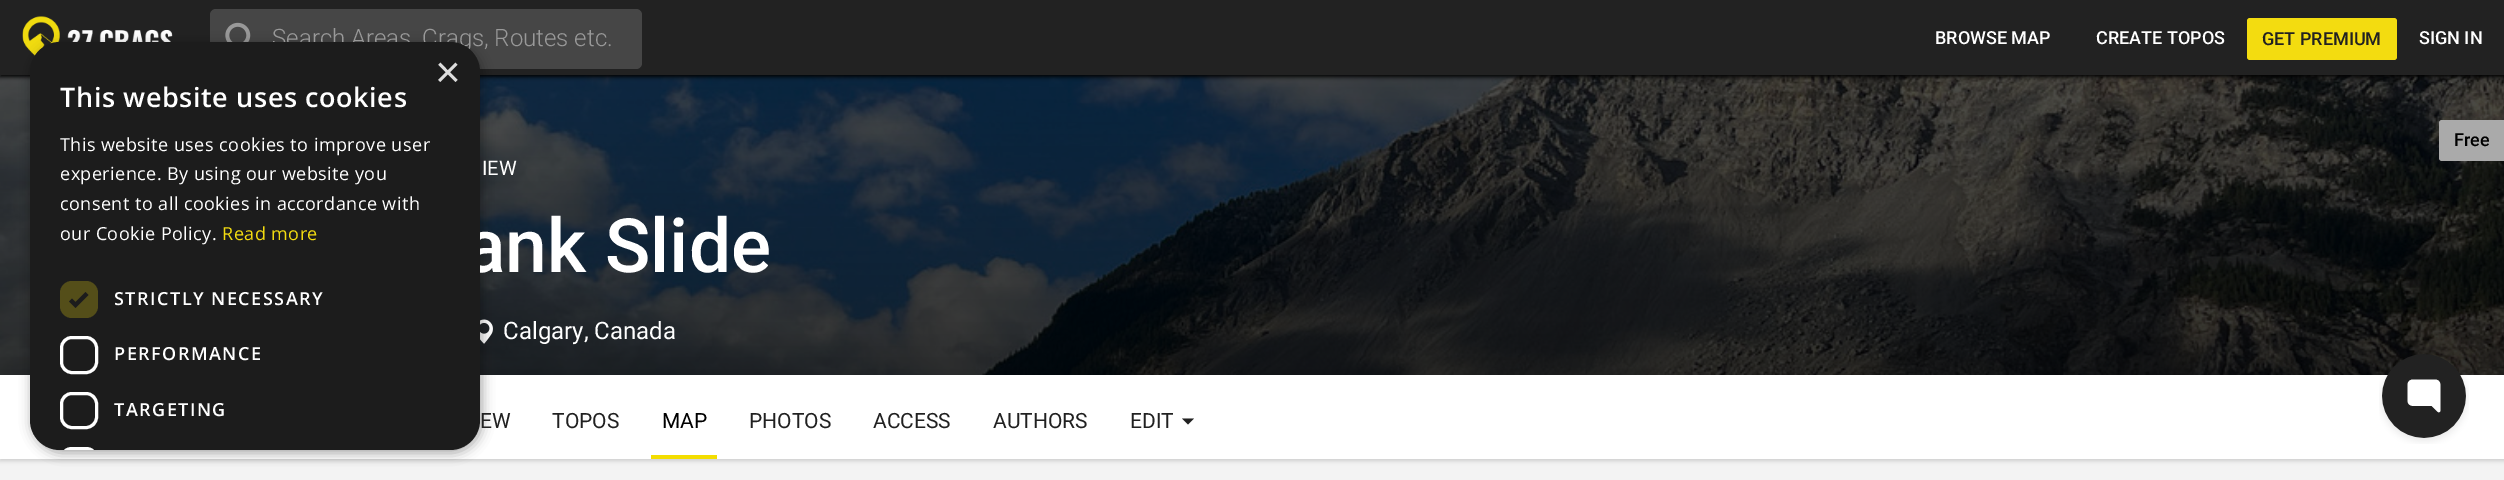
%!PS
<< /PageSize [2504 480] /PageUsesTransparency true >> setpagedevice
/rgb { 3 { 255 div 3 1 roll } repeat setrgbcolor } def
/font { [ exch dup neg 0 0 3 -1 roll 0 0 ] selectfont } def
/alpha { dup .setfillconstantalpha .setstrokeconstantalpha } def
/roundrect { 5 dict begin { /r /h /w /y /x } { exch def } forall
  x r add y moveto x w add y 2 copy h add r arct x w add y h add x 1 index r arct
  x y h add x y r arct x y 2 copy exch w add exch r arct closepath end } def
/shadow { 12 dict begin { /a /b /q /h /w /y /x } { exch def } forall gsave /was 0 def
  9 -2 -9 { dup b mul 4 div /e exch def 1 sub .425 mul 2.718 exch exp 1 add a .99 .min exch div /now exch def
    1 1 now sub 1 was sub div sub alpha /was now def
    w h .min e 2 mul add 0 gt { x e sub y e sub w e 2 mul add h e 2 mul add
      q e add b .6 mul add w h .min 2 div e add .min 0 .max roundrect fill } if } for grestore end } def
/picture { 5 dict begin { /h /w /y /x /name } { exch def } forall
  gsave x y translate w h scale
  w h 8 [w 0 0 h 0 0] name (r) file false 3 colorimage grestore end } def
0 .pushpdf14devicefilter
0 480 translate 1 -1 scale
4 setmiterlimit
243 243 243 rgb
0 0 2504 480 rectfill
(img/3.rgb) 0 75 2504 300 picture
1 1 1 rgb
0 2 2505 75 0 2 1 shadow
34 34 34 rgb
0 0 2504 75 rectfill
(img/1.rgb) 22 16 151 40 picture
70 70 70 rgb
210 9 432 60 6 roundrect fill
(img/2.rgb) 225 22 26 20 picture
(img/4.rgb) 480 319 13 25 picture
0 0 0 rgb
0 377 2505 84 0 2 0.15 shadow
255 255 255 rgb
0 375 2504 84 rectfill
0 0 0 rgb
32 45 450 408 30 6 0.35 shadow
243 220 16 rgb
2247 18 150 42 3 roundrect fill
170 170 170 rgb
2442 120 moveto 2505 120 lineto 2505 161 lineto 2442 161 lineto 2440.5 161 2439 159.5 2439 158 curveto 2439 123 lineto 2439 121.5 2440.5 120 2442 120 curveto closepath fill
33 33 33 rgb
1182 418.5 moveto 1194 418.5 lineto 1188 424.5 lineto closepath fill
243 221 0 rgb
651 455 66 4 rectfill
(img/5.rgb) 2379 354 90 90 picture
/Roboto-Light 24 font
153 153 153 rgb
272 46 moveto (Search Areas, Crags, Routes etc.) show
/Roboto-Medium 18 font
255 255 255 rgb
1935 44 moveto (BROWSE MAP) show
2096 44 moveto (CREATE TOPOS) show
33 33 33 rgb
2262 45 moveto (GET PREMIUM) show
255 255 255 rgb
2419 44 moveto (SIGN IN) show
0 0 0 rgb
2454 146 moveto (Free) show
/Roboto-Regular 20 font
255 255 255 rgb
482 175 moveto (IEW) show
/Roboto-Medium 75 font
465 272 moveto (ank Slide) show
28 28 28 rgb
30 42 450 408 30 roundrect fill
/LiberationSans-Regular 44 font
221 221 221 rgb
435 87 moveto (×) show
255 255 255 rgb
72 447 moveto 69 447 66 448 64 450 curveto 94 450 lineto 92 448 89 447 86 447 curveto closepath fill
3 setlinewidth
61.5 393.5 35 34 10.5 roundrect stroke
61.5 337.5 35 35 10.5 roundrect stroke
84 78 25 rgb
60 281 38 37 12 roundrect fill
28 28 28 rgb
3.9 setlinewidth
70.5 300 moveto 75.5 305 lineto 87 293.5 lineto stroke
/OpenSans-SemiBold 18 font
255 255 255 rgb
114 416 moveto 1.5 0 (TARGETING) ashow
114 360 moveto 1.5 0 (PERFORMANCE) ashow
114 305 moveto 1.5 0 (STRICTLY NECESSARY) ashow
/OpenSans-Regular 18 font
243 220 16 rgb
222 240 moveto 0.45 0 (Read more) ashow
255 255 255 rgb
60 240 moveto 0.45 0 (our Cookie Policy.) ashow
60 210 moveto 0.45 0 (consent to all cookies in accordance with) ashow
60 180 moveto 0.45 0 (experience. By using our website you) ashow
60 151 moveto 0.45 0 (This website uses cookies to improve user) ashow
/OpenSans-SemiBold 27 font
60 107 moveto 0.6 0 (This website uses cookies) ashow
/Roboto-Regular 24 font
503 339 moveto (Calgary, Canada) show
/Roboto-Regular 21 font
33 33 33 rgb
480 428 moveto (EW) show
552 428 moveto (TOPOS) show
0 0 0 rgb
662 428 moveto (MAP) show
33 33 33 rgb
[
  [(PHOTOS) 749 428]
  [(ACCESS) 873 428]
  [(AUTHORS) 993 428]
  [(EDIT) 1130 428]
] { aload pop moveto show } forall
.poppdf14devicefilter showpage
